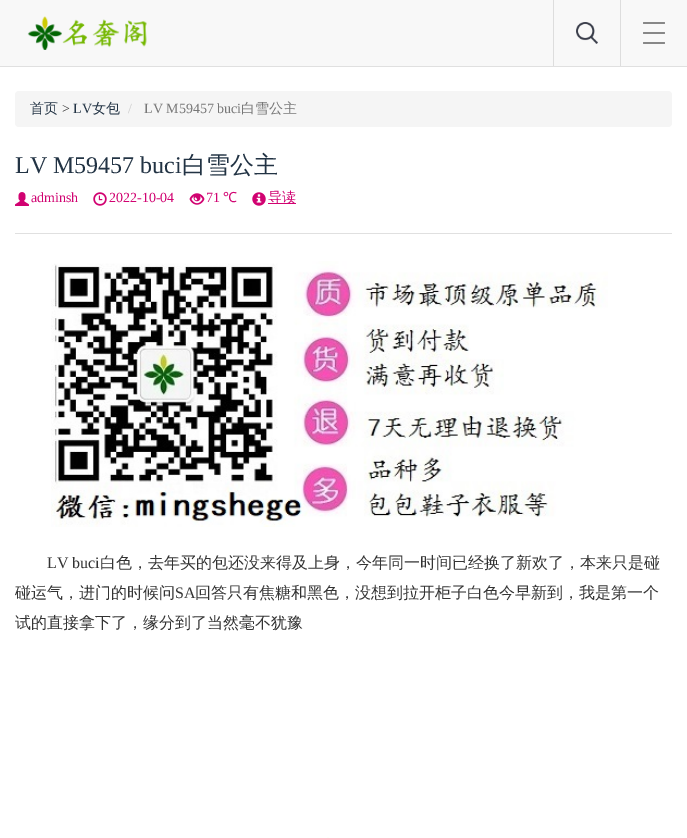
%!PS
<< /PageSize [687 838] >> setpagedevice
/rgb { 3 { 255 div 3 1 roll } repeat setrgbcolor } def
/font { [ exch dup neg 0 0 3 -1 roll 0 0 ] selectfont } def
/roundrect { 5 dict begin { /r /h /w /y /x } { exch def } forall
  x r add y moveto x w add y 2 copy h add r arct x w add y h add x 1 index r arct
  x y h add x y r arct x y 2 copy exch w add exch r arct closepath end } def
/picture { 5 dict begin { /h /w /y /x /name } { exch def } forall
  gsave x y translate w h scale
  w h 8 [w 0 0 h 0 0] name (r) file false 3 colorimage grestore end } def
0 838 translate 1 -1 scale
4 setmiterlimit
255 255 255 rgb
0 0 687 838 rectfill
248 248 248 rgb
0 0 687 66 rectfill
224 224 224 rgb
0 66 687 1 rectfill
(img/1.rgb) 27 16 120 34 picture
221 221 221 rgb
553 0 1 66 rectfill
(img/2.rgb) 576 22 22 22 picture
620 0 1 66 rectfill
136 136 136 rgb
643 22 22 2 1 roundrect fill
643 32 22 2 1 roundrect fill
643 42 22 2 1 roundrect fill
245 245 245 rgb
15 91 657 36 4 roundrect fill
(img/3.rgb) 15 192 14 14 picture
(img/4.rgb) 93 192 14 14 picture
(img/5.rgb) 189 193 16 12 picture
(img/6.rgb) 252 192 14 14 picture
209 2 113 rgb
268 203 28 1 rectfill
224 224 224 rgb
15 233 657 1 rectfill
(img/7.rgb) 51 261 557 266 picture
253 255 250 rgb
327 837 2 1 rectfill
/WenQuanYiZenHei-Medium 14 font
34 51 68 rgb
30 113 moveto (首页) show
/LiberationSerif-Regular 14 font
51 51 51 rgb
62 113 moveto (>) show
34 51 68 rgb
73 113 moveto (LV) show
/WenQuanYiZenHei-Medium 14 font
92 113 moveto (女包) show
/LiberationSerif-Regular 14 font
204 204 204 rgb
128 113 moveto (/) show
119 119 119 rgb
144 113 moveto (LV M59457 buci) show
/WenQuanYiZenHei-Medium 14 font
241 113 moveto (白雪公主) show
/LiberationSerif-Regular 24 font
34 51 68 rgb
15 173 moveto (LV M59457 buci) show
/WenQuanYiZenHei-Medium 24 font
182 173 moveto (白雪公主) show
/LiberationSerif-Regular 14 font
209 2 113 rgb
[
  [(adminsh) 31 202]
  [(2022-10-04) 109 202]
  [(71) 206 202]
] { aload pop moveto show } forall
/NotoSans-Regular 14 font
223 202 moveto (℃) show
/WenQuanYiZenHei-Medium 14 font
268 202 moveto (导读) show
/LiberationSerif-Regular 16 font
51 51 51 rgb
47 568 moveto (LV buci) show
/WenQuanYiZenHei-Medium 16 font
100 568 moveto (白色，去年买的包还没来得及上身，今年同一时间已经换了新欢了，本来只是碰) show
15 598 moveto (碰运气，进门的时候问) show
/LiberationSerif-Regular 16 font
175 598 moveto (SA) show
/WenQuanYiZenHei-Medium 16 font
195 598 moveto (回答只有焦糖和黑色，没想到拉开柜子白色今早新到，我是第一个) show
15 628 moveto (试的直接拿下了，缘分到了当然毫不犹豫) show
showpage
